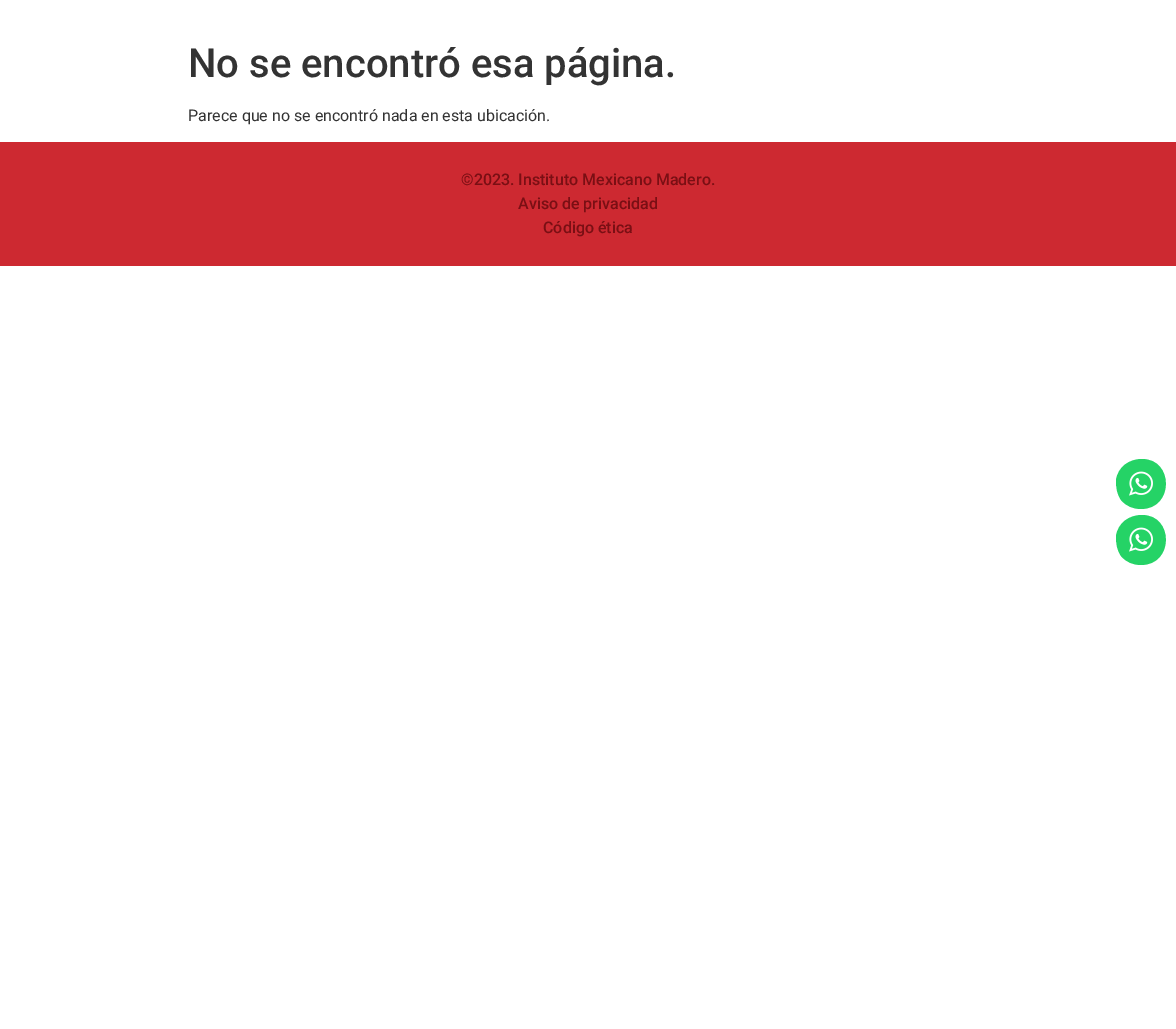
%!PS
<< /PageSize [1176 1029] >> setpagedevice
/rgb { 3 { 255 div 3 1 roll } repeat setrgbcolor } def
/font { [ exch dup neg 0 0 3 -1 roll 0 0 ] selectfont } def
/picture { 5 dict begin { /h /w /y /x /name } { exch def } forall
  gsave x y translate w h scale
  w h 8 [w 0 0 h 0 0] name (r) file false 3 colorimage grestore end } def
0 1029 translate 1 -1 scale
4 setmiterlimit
255 255 255 rgb
0 0 1176 1029 rectfill
205 41 49 rgb
0 142 1176 124 rectfill
37 211 102 rgb
1116 480 moveto 1118 467 1129 459 1142 459 curveto 1174 459 1174 509 1141 509 curveto 1133 509 1126 506 1121 500 curveto 1117 494 1116 488 1116 480 curveto closepath fill
(img/1.rgb) 1129 471 24 25 picture
1116 536 moveto 1118 523 1129 515 1142 515 curveto 1174 515 1174 565 1141 565 curveto 1133 565 1126 562 1121 556 curveto 1117 550 1116 544 1116 536 curveto closepath fill
(img/1.rgb) 1129 527 24 25 picture
/Roboto-Medium 40 font
51 51 51 rgb
188 77 moveto (No se encontró esa página.) show
/Roboto-Regular 16 font
188 121 moveto (Parece que no se encontró nada en esta ubicación.) show
/Roboto-Medium 16 font
122 15 20 rgb
[
  [(©2023. Instituto Mexicano Madero.) 461 185]
  [(Aviso de privacidad) 518 209]
  [(Código ética) 543 233]
] { aload pop moveto show } forall
showpage
